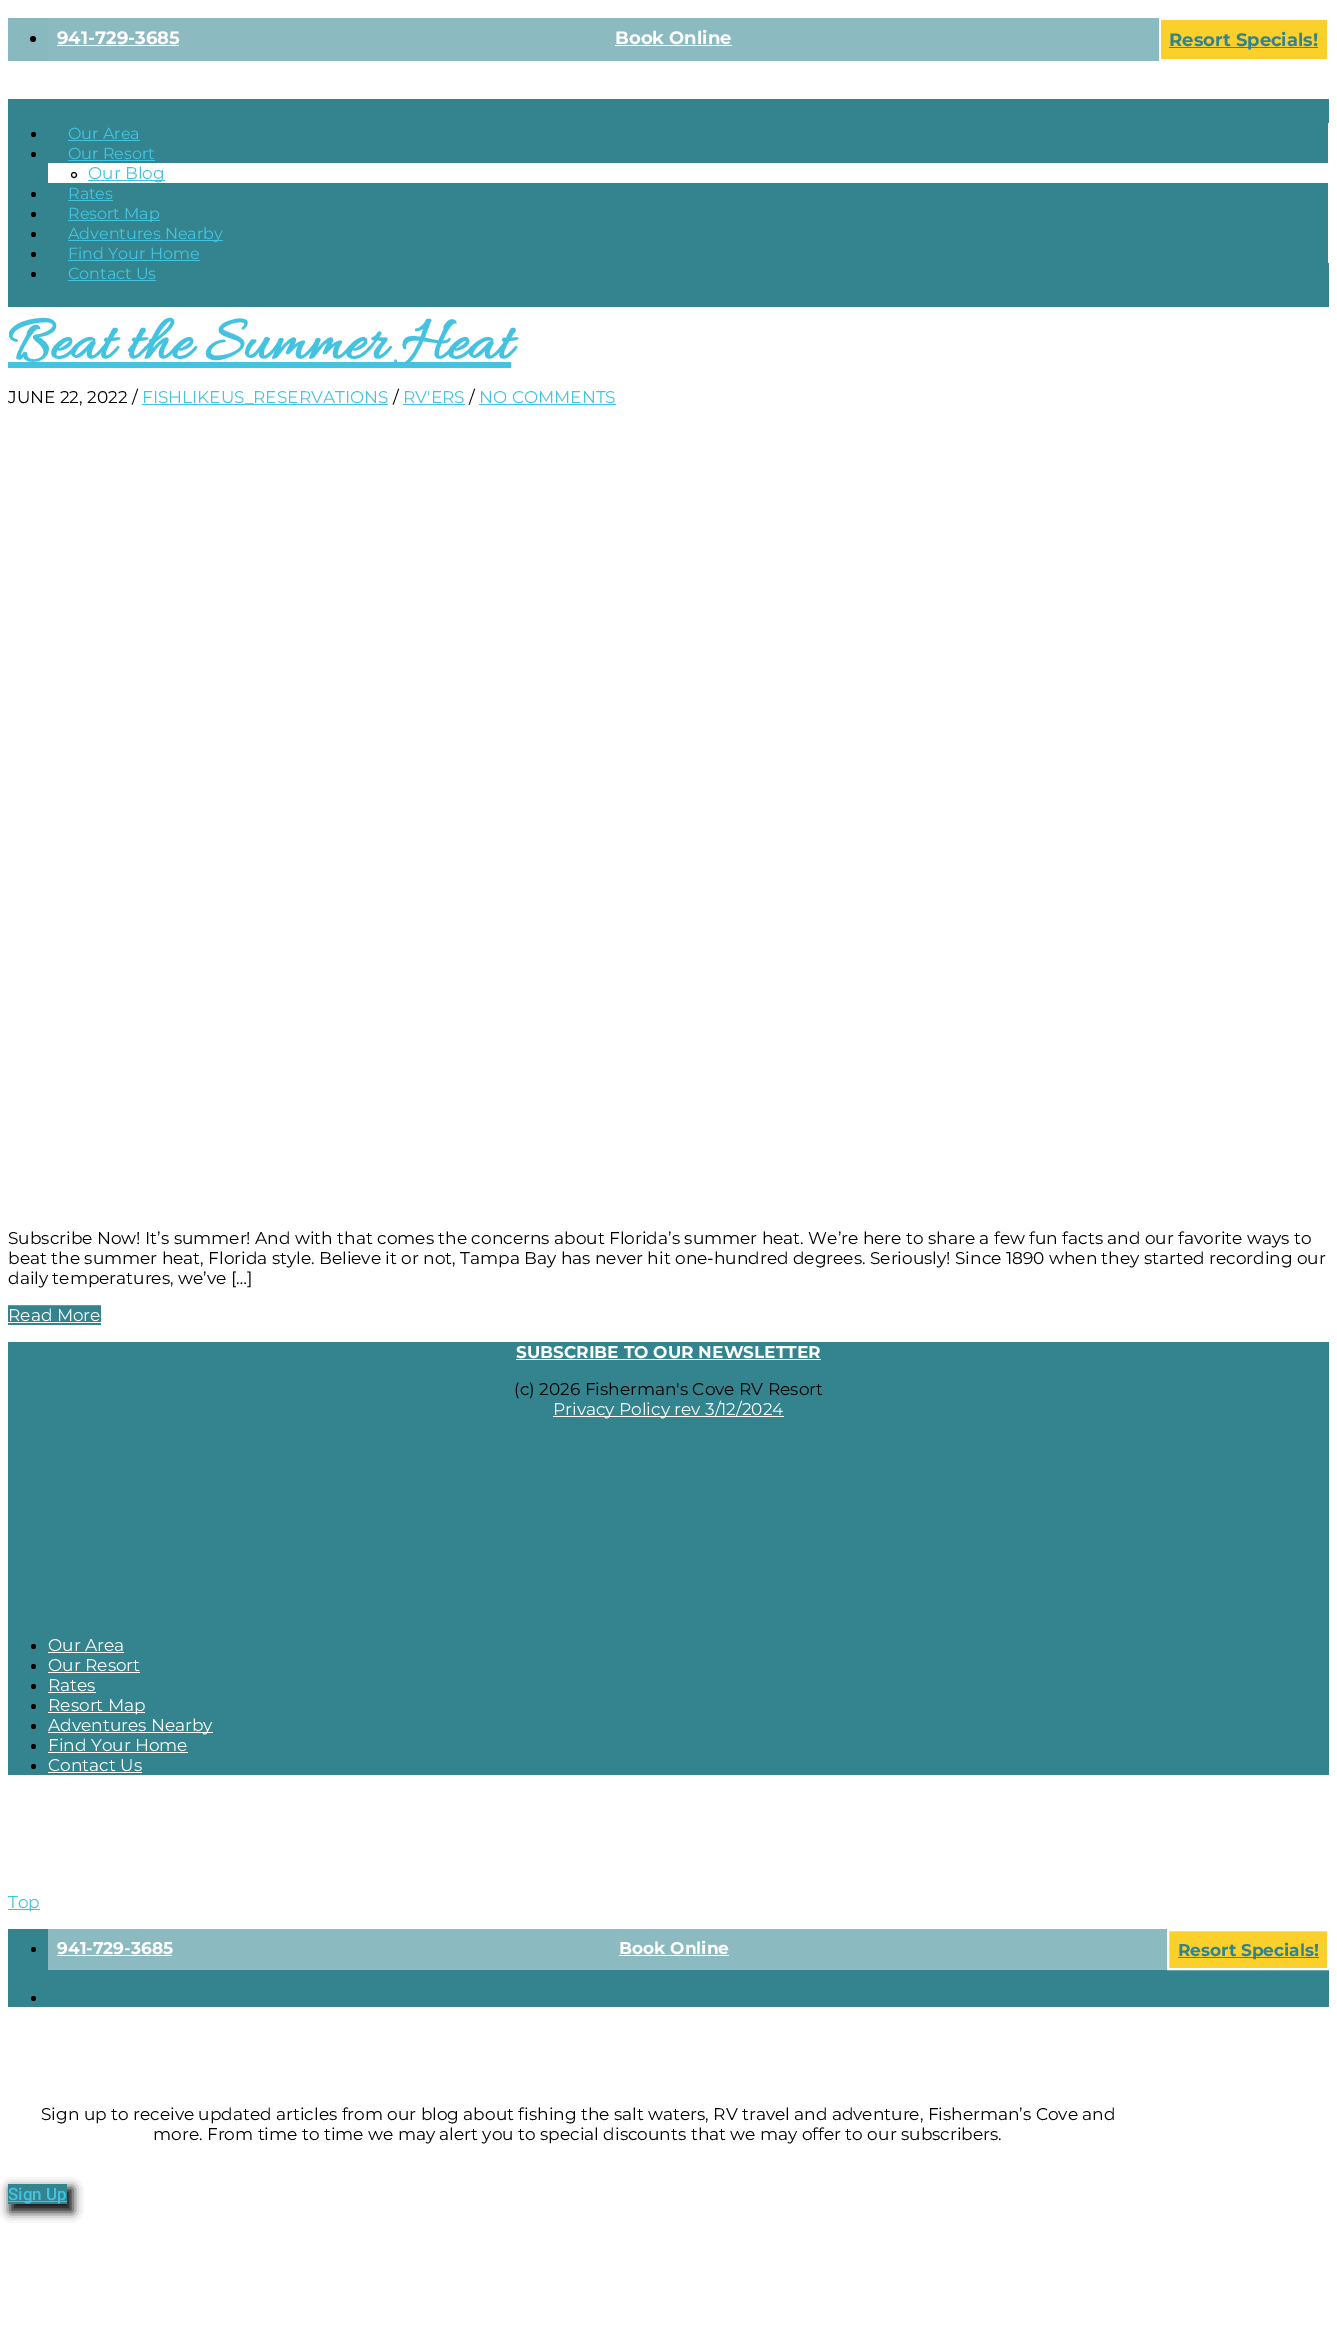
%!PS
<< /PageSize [1337 2351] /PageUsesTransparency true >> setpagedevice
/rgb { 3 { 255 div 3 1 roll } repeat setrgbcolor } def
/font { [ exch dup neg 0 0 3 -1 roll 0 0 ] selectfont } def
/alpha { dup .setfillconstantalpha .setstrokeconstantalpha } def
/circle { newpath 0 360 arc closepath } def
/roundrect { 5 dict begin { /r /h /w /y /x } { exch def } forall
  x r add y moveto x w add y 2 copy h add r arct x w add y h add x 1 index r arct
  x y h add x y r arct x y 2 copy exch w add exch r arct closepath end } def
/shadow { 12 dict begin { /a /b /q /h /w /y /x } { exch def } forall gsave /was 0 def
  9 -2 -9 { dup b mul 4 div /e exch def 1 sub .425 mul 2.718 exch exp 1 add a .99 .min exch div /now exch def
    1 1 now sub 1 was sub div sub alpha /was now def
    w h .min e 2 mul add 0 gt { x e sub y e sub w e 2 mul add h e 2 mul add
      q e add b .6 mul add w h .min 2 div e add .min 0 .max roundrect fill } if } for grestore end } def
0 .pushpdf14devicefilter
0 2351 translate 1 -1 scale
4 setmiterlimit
255 255 255 rgb
0 0 1337 2351 rectfill
136 185 191 rgb
8 18 40 43 rectfill
0 0 0 rgb
33 39 3 circle fill
[
  [48 18 1111 43 139 186 193]
  [57 45 122 1 255 255 255]
  [615 45 117 1 255 255 255]
  [1161 20 166 39 252 208 42]
  [1169 47 149 1 51 131 141]
  [8 99 1321 208 51 132 142]
  [1328 123 1 140 255 255 255]
] { aload pop rgb rectfill } forall
0 0 0 rgb
33.5 134.5 2.5 circle fill
67 195 224 rgb
68 140 72 1 rectfill
0 0 0 rgb
33.5 154.5 2.5 circle fill
67 195 224 rgb
68 160 87 1 rectfill
255 255 255 rgb
48 163 1280 20 rectfill
0 0 0 rgb
74 175 2.5 circle stroke
67 195 224 rgb
88 180 77 1 rectfill
0 0 0 rgb
33.5 194.5 2.5 circle fill
67 195 224 rgb
68 200 45 1 rectfill
0 0 0 rgb
33.5 214.5 2.5 circle fill
67 195 224 rgb
68 220 92 1 rectfill
0 0 0 rgb
33.5 234.5 2.5 circle fill
67 195 224 rgb
68 240 155 1 rectfill
0 0 0 rgb
33.5 254.5 2.5 circle fill
67 195 224 rgb
68 260 132 1 rectfill
0 0 0 rgb
33.5 274.5 2.5 circle fill
[
  [68 280 88 1 67 195 224]
  [8 362 503 6 67 195 224]
  [142 404 246 1 67 195 224]
  [403 404 62 1 67 195 224]
  [479 404 137 1 67 195 224]
  [8 1306 93 19 51 132 142]
  [8 1305 93 1 92 157 165]
  [8 1322 93 1 255 255 255]
  [8 1342 1321 433 51 132 142]
  [516 1359 305 1 255 255 255]
  [553 1416 231 1 255 255 255]
] { aload pop rgb rectfill } forall
0 0 0 rgb
33.5 1646.5 2.5 circle fill
255 255 255 rgb
48 1652 76 1 rectfill
0 0 0 rgb
33.5 1666.5 2.5 circle fill
255 255 255 rgb
48 1672 92 1 rectfill
0 0 0 rgb
33.5 1686.5 2.5 circle fill
255 255 255 rgb
48 1692 48 1 rectfill
0 0 0 rgb
33.5 1706.5 2.5 circle fill
255 255 255 rgb
48 1712 97 1 rectfill
0 0 0 rgb
33.5 1726.5 2.5 circle fill
255 255 255 rgb
48 1732 165 1 rectfill
0 0 0 rgb
33.5 1746.5 2.5 circle fill
255 255 255 rgb
48 1752 140 1 rectfill
0 0 0 rgb
33.5 1766.5 2.5 circle fill
[
  [48 1772 94 1 255 255 255]
  [8 1909 32 1 67 195 224]
  [8 1929 1321 78 51 132 142]
] { aload pop rgb rectfill } forall
0 0 0 rgb
33.5 1949.5 2.5 circle fill
[
  [48 1929 1119 41 139 186 193]
  [57 1955 115 1 255 255 255]
  [619 1955 110 1 255 255 255]
] { aload pop rgb rectfill } forall
252 208 42 rgb
1168 1930 moveto 1328 1930 lineto 1328 1969 lineto 1168 1969 lineto closepath gsave fill grestore
255 255 255 rgb
2 setlinewidth
stroke
51 131 141 rgb
1178 1957 141 1 rectfill
0 0 0 rgb
33.5 1998.5 2.5 circle fill
10 2188 63 24 0 5 0.94 shadow
51 132 142 rgb
8 2184 59 20 rectfill
67 195 224 rgb
8 2201 59 1 rectfill
/Montserrat-Bold 18 font
255 255 255 rgb
57 44 moveto (941-729-3685) show
615 44 moveto (Book Online) show
51 131 141 rgb
1169 46 moveto (Resort Specials!) show
/Montserrat-Regular 16 font
67 195 224 rgb
68 139 moveto (Our Area) show
68 159 moveto (Our Resort) show
/Montserrat-Regular 17 font
88 179 moveto (Our Blog) show
/Montserrat-Regular 16 font
[
  [(Rates) 68 199]
  [(Resort Map) 68 219]
  [(Adventures Nearby) 68 239]
  [(Find Your Home) 68 259]
  [(Contact Us) 68 279]
] { aload pop moveto show } forall
/Allura-Bold 63.75 font
8 358 moveto (Beat the Summer Heat) show
/Montserrat-Regular 17 font
0 0 0 rgb
8 403 moveto (JUNE 22, 2022 /) show
67 195 224 rgb
142 403 moveto (FISHLIKEUS_RESERVATIONS) show
0 0 0 rgb
393 403 moveto (/) show
67 195 224 rgb
403 403 moveto (RV'ERS) show
0 0 0 rgb
469 403 moveto (/) show
67 195 224 rgb
479 403 moveto (NO COMMENTS) show
0 0 0 rgb
[
  [(Subscribe Now! It’s summer! And with that comes the concerns about Florida’s summer heat. We’re here to share a few fun facts and our favorite ways to) 8 1244]
  [(beat the summer heat, Florida style. Believe it or not, Tampa Bay has never hit one-hundred degrees. Seriously! Since 1890 when they started recording our) 8 1264]
  [(daily temperatures, we’ve […]) 8 1284]
] { aload pop moveto show } forall
255 255 255 rgb
8 1321 moveto (Read More) show
/Montserrat-Bold 17 font
516 1358 moveto (SUBSCRIBE TO OUR NEWSLETTER) show
/Montserrat-Regular 17 font
0 0 0 rgb
514 1395 moveto (\(c\) 2026 Fisherman's Cove RV Resort) show
255 255 255 rgb
[
  [(Privacy Policy rev 3/12/2024) 553 1415]
  [(Our Area) 48 1651]
  [(Our Resort) 48 1671]
  [(Rates) 48 1691]
  [(Resort Map) 48 1711]
  [(Adventures Nearby) 48 1731]
  [(Find Your Home) 48 1751]
  [(Contact Us) 48 1771]
] { aload pop moveto show } forall
67 195 224 rgb
8 1908 moveto (Top) show
/Montserrat-Bold 17 font
255 255 255 rgb
57 1954 moveto (941-729-3685) show
619 1954 moveto (Book Online) show
51 131 141 rgb
1178 1956 moveto (Resort Specials!) show
/Montserrat-Regular 17 font
0 0 0 rgb
41 2120 moveto (Sign up to receive updated articles from our blog about fishing the salt waters, RV travel and adventure, Fisherman’s Cove and) show
153 2140 moveto (more. From time to time we may alert you to special discounts that we may offer to our subscribers.) show
/Roboto-Medium 17 font
67 195 224 rgb
8 2200 moveto (Sign Up) show
.poppdf14devicefilter showpage
